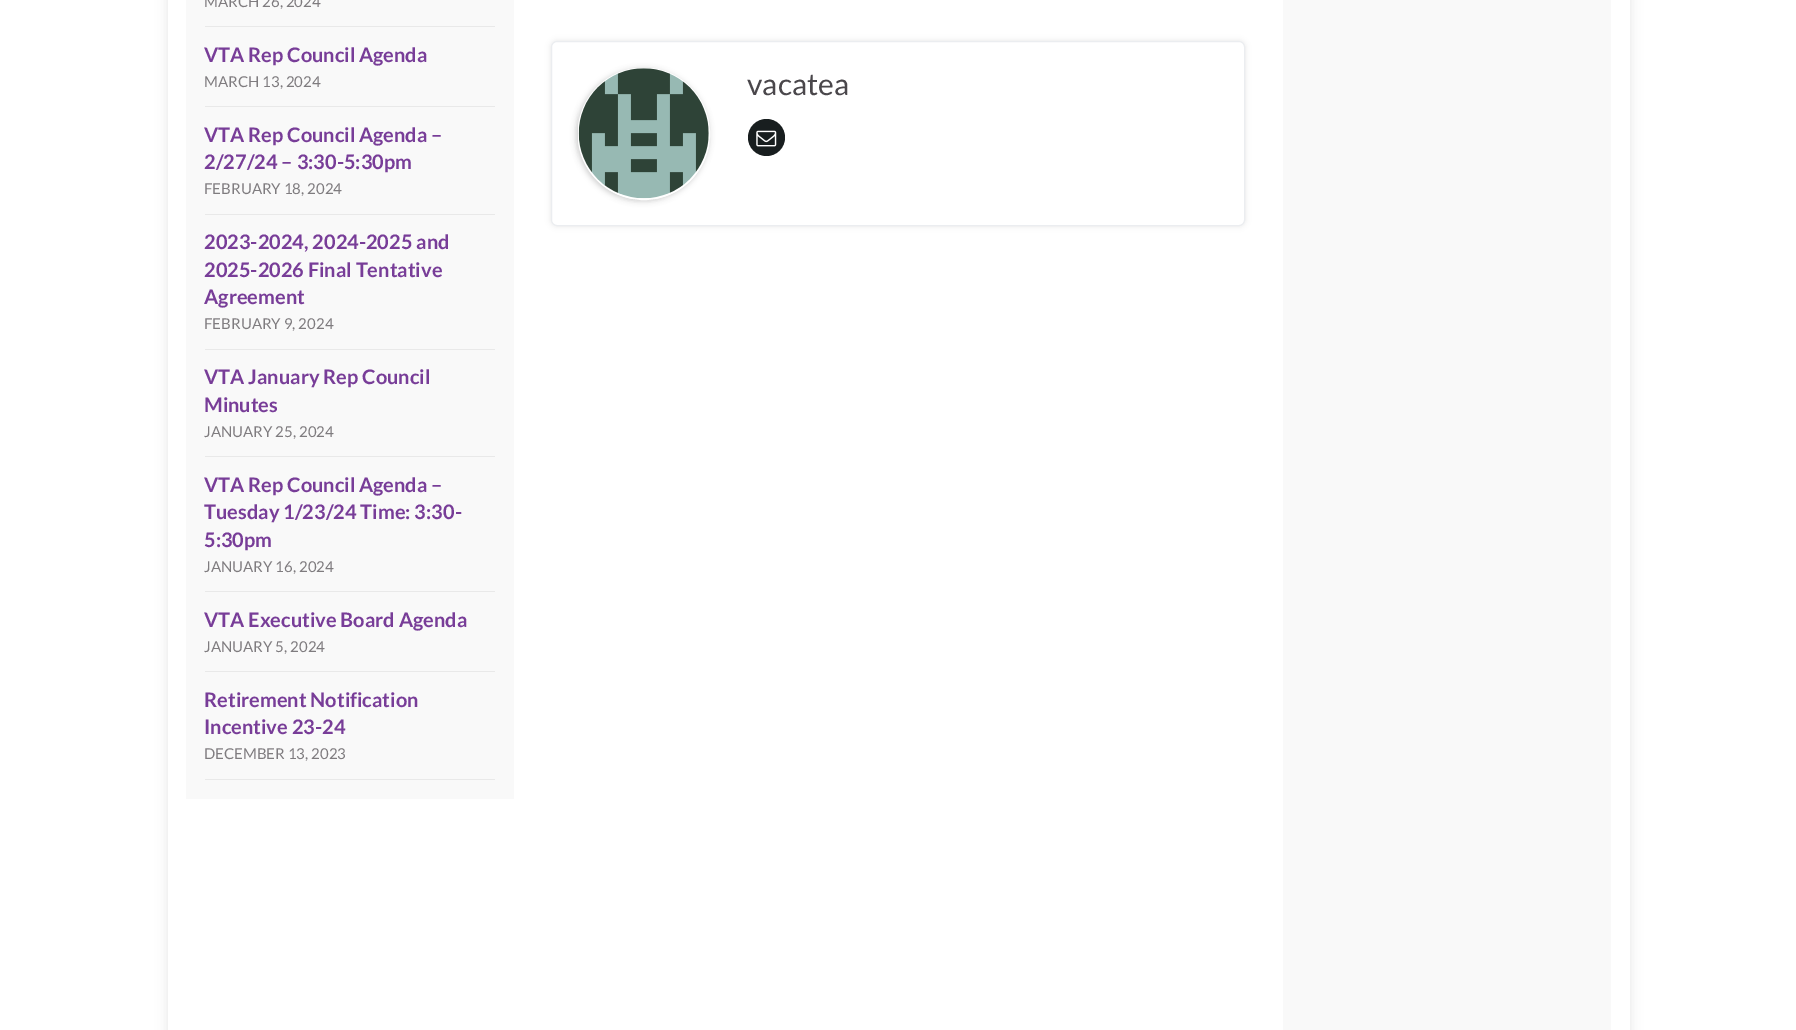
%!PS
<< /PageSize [1796 1030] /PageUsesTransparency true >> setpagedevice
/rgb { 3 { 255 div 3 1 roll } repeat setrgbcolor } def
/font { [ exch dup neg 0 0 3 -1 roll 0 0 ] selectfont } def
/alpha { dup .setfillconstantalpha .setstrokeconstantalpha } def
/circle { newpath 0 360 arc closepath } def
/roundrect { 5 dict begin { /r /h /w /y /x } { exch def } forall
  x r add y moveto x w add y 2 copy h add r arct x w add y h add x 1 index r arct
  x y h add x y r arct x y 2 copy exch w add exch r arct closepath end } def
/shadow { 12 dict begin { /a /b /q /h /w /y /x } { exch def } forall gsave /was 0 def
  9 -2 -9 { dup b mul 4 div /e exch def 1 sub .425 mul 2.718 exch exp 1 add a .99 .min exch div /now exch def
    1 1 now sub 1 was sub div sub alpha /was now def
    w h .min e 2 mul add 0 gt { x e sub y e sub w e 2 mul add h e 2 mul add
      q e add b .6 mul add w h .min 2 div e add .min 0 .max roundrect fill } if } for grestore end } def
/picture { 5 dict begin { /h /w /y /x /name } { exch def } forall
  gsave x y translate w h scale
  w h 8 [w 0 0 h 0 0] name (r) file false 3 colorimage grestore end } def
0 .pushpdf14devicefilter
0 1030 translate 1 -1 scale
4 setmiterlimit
255 255 255 rgb
0 0 1796 1030 rectfill
gsave
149 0 moveto 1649 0 lineto 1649 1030 lineto 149 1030 lineto closepath 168 -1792 moveto 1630 -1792 lineto 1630 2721 lineto 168 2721 lineto closepath eoclip newpath
0 0 0 rgb
168 -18 1462 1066 0 6 0.1 shadow
grestore
[
  [186 0 328 799 249 249 249]
  [205 26 290 1 233 233 233]
  [205 106 290 1 233 233 233]
  [205 214 290 1 233 233 233]
  [205 349 290 1 233 233 233]
  [205 456 290 1 233 233 233]
  [205 591 290 1 233 233 233]
  [205 671 290 1 233 233 233]
  [205 779 290 1 233 233 233]
] { aload pop rgb rectfill } forall
0 0 0 rgb
551 41 694 185 6 3 0.1 shadow
255 255 255 rgb
551.5 41.5 693 184 5.5 roundrect gsave fill grestore
235 237 240 rgb
stroke
gsave
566 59 moveto 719 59 lineto 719 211 lineto 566 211 lineto closepath 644 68 moveto 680.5 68 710 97.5 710 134 curveto 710 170.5 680.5 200 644 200 curveto 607.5 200 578 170.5 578 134 curveto 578 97.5 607.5 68 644 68 curveto closepath eoclip newpath
0 0 0 rgb
576 69 133 132 66 3 0.2 shadow
grestore
255 255 255 rgb
644 134 65.5 circle stroke
(img/1.rgb) 578 68 131 131 picture
24 30 31 rgb
766.5 137.5 18.5 circle fill
(img/2.rgb) 756 130 21 17 picture
249 249 249 rgb
1283 0 328 1030 rectfill
/Lato-Regular 15 font
127 124 127 rgb
204 7 moveto (MARCH 26, 2024) show
/Lato-Bold 20 font
120 61 152 rgb
204 62 moveto (VTA Rep Council Agenda) show
/Lato-Regular 15 font
127 124 127 rgb
204 87 moveto (MARCH 13, 2024) show
/Lato-Bold 20 font
120 61 152 rgb
204 142 moveto (VTA Rep Council Agenda –) show
204 169 moveto (2/27/24 – 3:30-5:30pm) show
/Lato-Regular 15 font
127 124 127 rgb
204 194 moveto (FEBRUARY 18, 2024) show
/Lato-Bold 20 font
120 61 152 rgb
[
  [(2023-2024, 2024-2025 and) 204 249]
  [(2025-2026 Final Tentative) 204 277]
  [(Agreement) 204 304]
] { aload pop moveto show } forall
/Lato-Regular 15 font
127 124 127 rgb
204 329 moveto (FEBRUARY 9, 2024) show
/Lato-Bold 20 font
120 61 152 rgb
204 384 moveto (VTA January Rep Council) show
204 412 moveto (Minutes) show
/Lato-Regular 15 font
127 124 127 rgb
204 437 moveto (JANUARY 25, 2024) show
/Lato-Bold 20 font
120 61 152 rgb
[
  [(VTA Rep Council Agenda –) 204 492]
  [(Tuesday 1/23/24 Time: 3:30-) 204 519]
  [(5:30pm) 204 547]
] { aload pop moveto show } forall
/Lato-Regular 15 font
127 124 127 rgb
204 572 moveto (JANUARY 16, 2024) show
/Lato-Bold 20 font
120 61 152 rgb
204 627 moveto (VTA Executive Board Agenda) show
/Lato-Regular 15 font
127 124 127 rgb
204 652 moveto (JANUARY 5, 2024) show
/Lato-Bold 20 font
120 61 152 rgb
204 707 moveto (Retirement Notification) show
204 734 moveto (Incentive 23-24) show
/Lato-Regular 15 font
127 124 127 rgb
204 759 moveto (DECEMBER 13, 2023) show
/Lato-Regular 30 font
74 71 75 rgb
747 95 moveto (vacatea) show
.poppdf14devicefilter showpage
